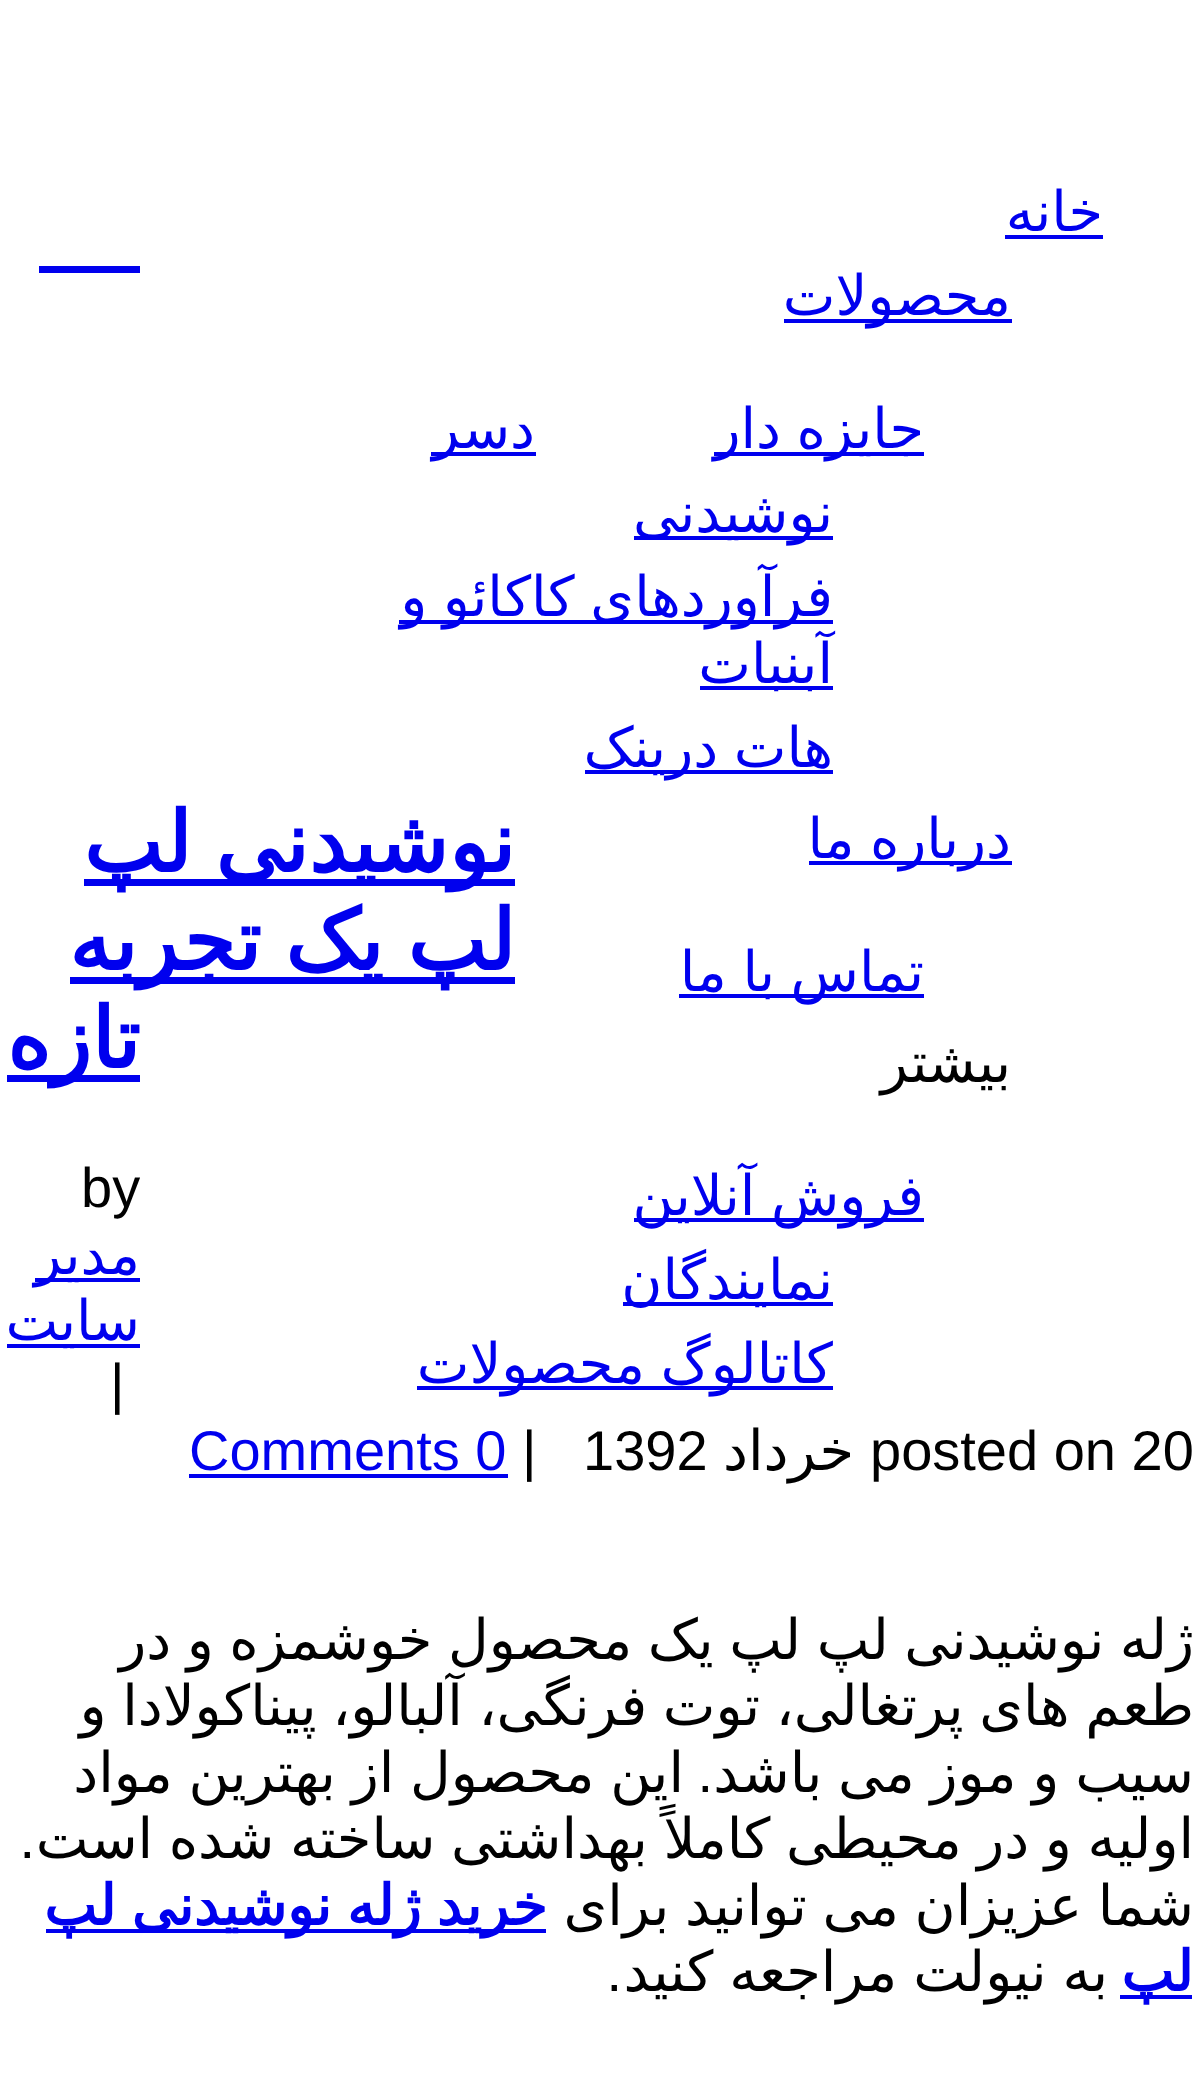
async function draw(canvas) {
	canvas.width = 1192;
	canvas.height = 2074;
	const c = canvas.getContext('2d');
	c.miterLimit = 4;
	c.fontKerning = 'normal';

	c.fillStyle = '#fff';
	c.fillRect(0, 0, 1192, 2074);
	c.direction = 'rtl';
	c.font = '56px DejaVu Sans';
	c.fillStyle = '#00e';
	c.fillText('خانه', 1103, 231);
	c.fillRect(1005, 235, 98, 4);
	c.fillRect(784, 319, 228, 4);
	c.fillText('محصولات', 1011, 315);
	c.fillRect(714, 452, 210, 4);
	c.wordSpacing = '-2.25px';
	c.fillText('جایزه دار', 924, 448);
	c.fillRect(431, 452, 105, 4);
	c.wordSpacing = '0px';
	c.fillText('دسر', 535, 448);
	c.fillRect(634, 536, 199, 4);
	c.fillText('نوشیدنی', 833, 532);
	c.fillRect(399, 620, 434, 4);
	c.wordSpacing = '-2.25px';
	c.fillText('فرآوردهای کاکائو و', 833, 616);
	c.fillRect(700, 686, 133, 4);
	c.wordSpacing = '0px';
	c.fillText('آبنبات', 833, 683);
	c.fillRect(585, 770, 248, 4);
	c.wordSpacing = '-2.25px';
	c.fillText('هات درینک', 833, 767);
	c.fillRect(809, 861, 203, 4);
	c.fillText('درباره ما', 1011, 858);
	c.fillRect(679, 994, 245, 4);
	c.fillText('تماس با ما', 924, 991);
	c.wordSpacing = '0px';
	c.fillStyle = '#000';
	c.fillText('بیشتر', 1011, 1082);
	c.fillStyle = '#00e';
	c.fillRect(634, 1218, 290, 4);
	c.wordSpacing = '-2.25px';
	c.fillText('فروش آنلاین', 924, 1215);
	c.fillRect(623, 1302, 210, 4);
	c.wordSpacing = '0px';
	c.fillText('نمایندگان', 833, 1299);
	c.fillRect(417, 1386, 416, 4);
	c.wordSpacing = '-2.25px';
	c.fillText('کاتالوگ محصولات', 833, 1383);
	c.fillRect(84, 879, 431, 7);
	c.wordSpacing = '-3px';
	c.font = 'bold 84px DejaVu Sans';
	c.fillText('نوشیدنی لپ', 515, 872);
	c.fillRect(39, 266, 101, 7);
	c.fillRect(70, 977, 445, 7);
	c.fillText('لپ یک تجربه', 515, 970);
	c.fillRect(7, 1075, 133, 7);
	c.wordSpacing = '0px';
	c.fillText('تازه', 140, 1068);
	c.direction = 'ltr';
	c.font = '56px Liberation Sans';
	c.fillStyle = '#000';
	c.fillText('by', 81, 1207);
	c.fillStyle = '#00e';
	c.fillRect(35, 1278, 105, 4);
	c.direction = 'rtl';
	c.font = '56px DejaVu Sans';
	c.fillText('مدیر', 140, 1274);
	c.fillRect(7, 1344, 133, 4);
	c.fillText('سایت', 140, 1340);
	c.direction = 'ltr';
	c.font = '56px Liberation Sans';
	c.fillStyle = '#000';
	c.fillText('|', 110, 1403);
	c.fillText('posted on 20', 870, 1470);
	c.direction = 'rtl';
	c.font = '56px DejaVu Sans';
	c.fillText('خرداد', 854, 1470);
	c.direction = 'ltr';
	c.font = '56px Liberation Sans';
	c.fillText('1392', 583, 1470);
	c.fillText('|', 522, 1470);
	c.fillStyle = '#00e';
	c.fillText('Comments 0', 189, 1470);
	c.fillRect(189, 1474, 319, 4);
	c.wordSpacing = '-2.25px';
	c.direction = 'rtl';
	c.font = '56px DejaVu Sans';
	c.fillStyle = '#000';
	c.fillText('ژله نوشیدنی لپ لپ یک محصول خوشمزه و در', 1194, 1659);
	c.fillText('طعم های پرتغالی، توت فرنگی، آلبالو، پیناکولادا و', 1194, 1725);
	c.wordSpacing = '-2px';
	c.fillText('سیب و موز می باشد', 1194, 1792);
	c.wordSpacing = '0px';
	c.font = '56px Liberation Sans';
	c.fillText('.', 713, 1792);
	c.wordSpacing = '-2px';
	c.font = '56px DejaVu Sans';
	c.fillText('این محصول از بهترین مواد', 684, 1792);
	c.wordSpacing = '-2.25px';
	c.fillText('اولیه و در محیطی کاملاً بهداشتی ساخته شده است', 1194, 1858);
	c.wordSpacing = '0px';
	c.font = '56px Liberation Sans';
	c.fillText('.', 35, 1858);
	c.wordSpacing = '-2.25px';
	c.font = '56px DejaVu Sans';
	c.fillText('شما عزیزان می توانید برای', 1194, 1925);
	c.fillStyle = '#00e';
	c.fillRect(46, 1929, 500, 4);
	c.font = 'bold 56px DejaVu Sans';
	c.fillText('خرید ژله نوشیدنی لپ', 547, 1925);
	c.fillRect(1120, 1995, 72, 4);
	c.wordSpacing = '0px';
	c.fillText('لپ', 1193, 1991);
	c.wordSpacing = '-2px';
	c.font = '56px DejaVu Sans';
	c.fillStyle = '#000';
	c.fillText('به نیولت مراجعه کنید', 1108, 1991);
	c.wordSpacing = '0px';
	c.font = '56px Liberation Sans';
	c.fillText('.', 622, 1991);
}

draw(document.querySelector('canvas'));
